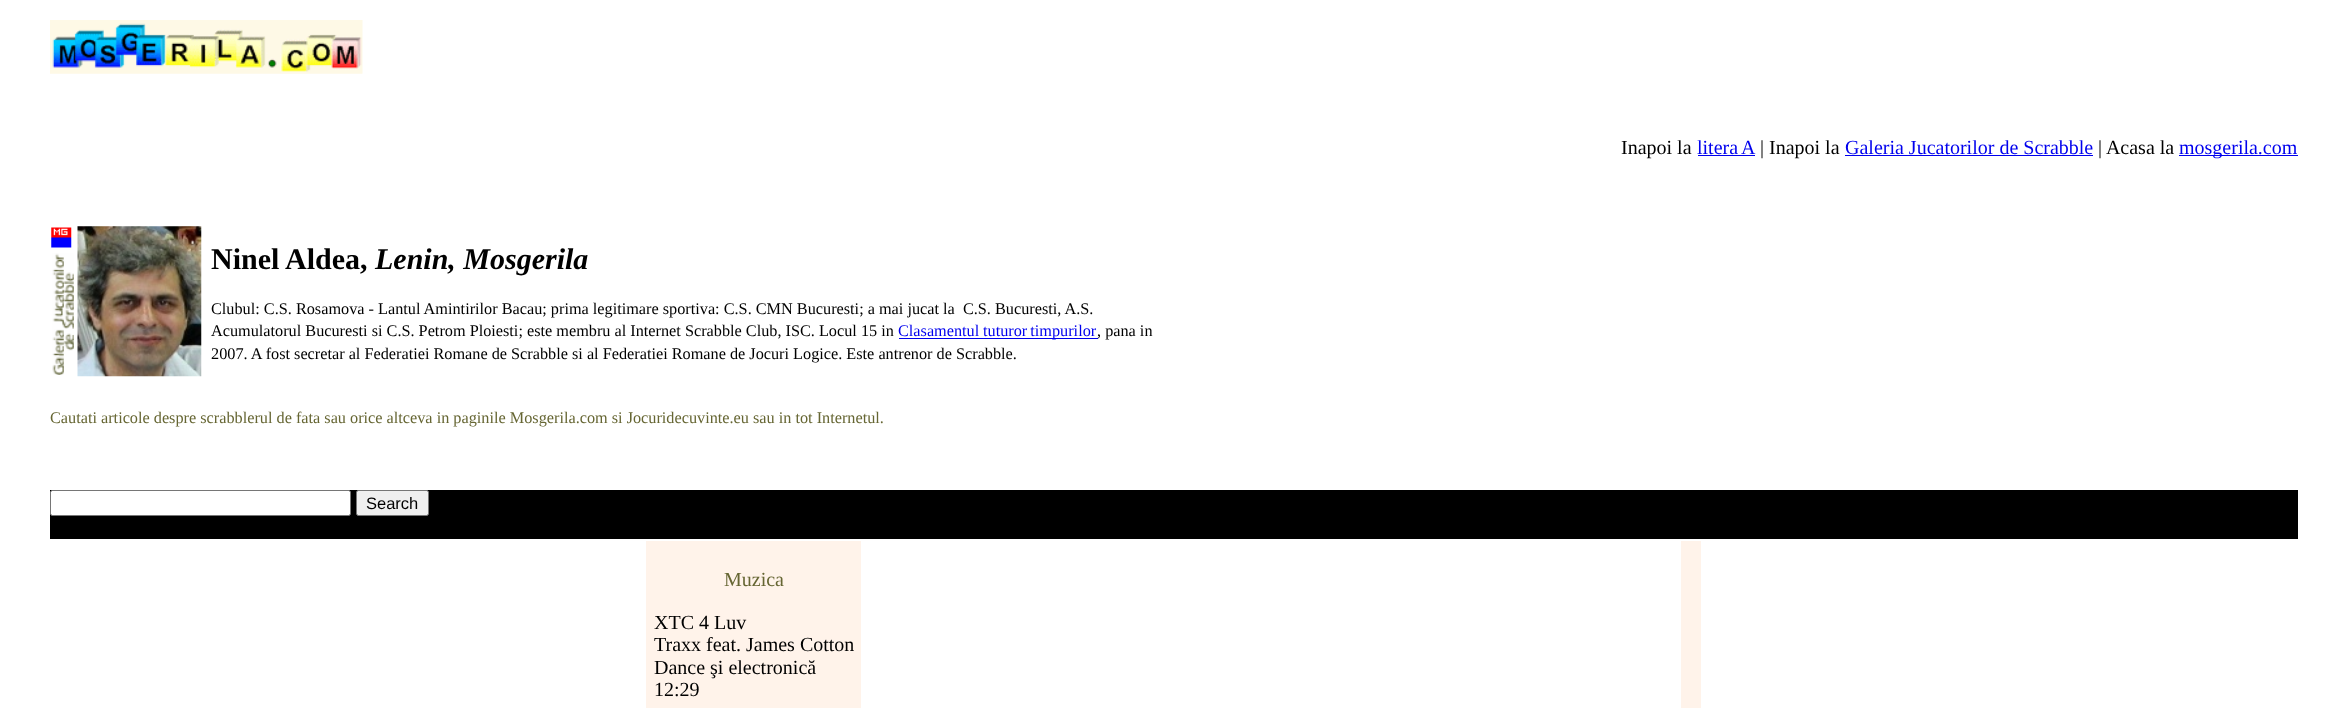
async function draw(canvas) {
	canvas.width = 2347;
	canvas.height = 708;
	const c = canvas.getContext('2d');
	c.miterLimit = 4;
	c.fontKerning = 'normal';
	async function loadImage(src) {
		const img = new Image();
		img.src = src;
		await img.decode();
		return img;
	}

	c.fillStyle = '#fff';
	c.fillRect(0, 0, 2347, 708);
	c.drawImage(await loadImage('img1.png'), 50, 20, 313, 54);
	c.font = '20px Liberation Serif';
	c.fillStyle = '#000';
	c.fillText('Inapoi la', 1621, 154);
	c.wordSpacing = '-1px';
	c.fillStyle = '#00e';
	c.fillText('litera A', 1697, 154);
	c.fillRect(1698, 155, 57, 1);
	c.wordSpacing = '0px';
	c.fillStyle = '#000';
	c.fillText('| Inapoi la', 1760, 154);
	c.fillStyle = '#00e';
	c.fillText('Galeria Jucatorilor de Scrabble', 1845, 154);
	c.fillRect(1845, 155, 248, 1);
	c.fillStyle = '#000';
	c.fillText('| Acasa la', 2098, 154);
	c.fillStyle = '#00e';
	c.fillRect(2179, 155, 119, 1);
	c.fillText('mosgerila.com', 2179, 154);
	c.drawImage(await loadImage('img2.png'), 51, 227, 21, 21);
	c.drawImage(await loadImage('img3.png'), 52, 253, 22, 122);
	c.drawImage(await loadImage('img4.png'), 77, 226, 125, 151);
	c.font = 'bold 30px Liberation Serif';
	c.fillStyle = '#000';
	c.fillText('Ninel', 211, 269);
	c.fillText('Aldea,', 285, 269);
	c.font = 'italic bold 30px Liberation Serif';
	c.fillText('Lenin, Mosgerila', 375, 269);
	c.font = '16.25px Liberation Serif';
	c.fillText('Clubul: C.S. Rosamova - Lantul Amintirilor Bacau; prima legitimare sportiva: C.S. CMN Bucuresti; a mai jucat la  C.S. Bucuresti, A.S.', 211, 314);
	c.fillText('Acumulatorul Bucuresti si C.S. Petrom Ploiesti; este membru al Internet Scrabble Club, ISC. Locul 15 in', 211, 336);
	c.fillStyle = '#00e';
	c.fillText('Clasamentul', 898, 336);
	c.fillRect(899, 338, 199, 1);
	c.wordSpacing = '-1px';
	c.fillText('tuturor timpurilor', 983, 336);
	c.wordSpacing = '0px';
	c.fillStyle = '#000';
	c.fillText(', pana in', 1097, 336);
	c.fillText('2007. A fost secretar al Federatiei Romane de Scrabble si al Federatiei Romane de Jocuri Logice. Este antrenor de Scrabble.', 211, 359);
	c.fillStyle = '#663';
	c.fillText('Cautati articole despre scrabblerul de fata sau orice altceva in paginile Mosgerila.com si Jocuridecuvinte.eu sau in tot Internetul.', 50, 423);
	c.fillStyle = '#000';
	c.fillRect(50, 490, 2248, 49);
	c.fillStyle = '#fff';
	c.beginPath();
	c.roundRect(50.5, 490.5, 300, 25, 2);
	c.fill();
	c.strokeStyle = '#767676';
	c.stroke();
	c.fillStyle = '#efefef';
	c.beginPath();
	c.roundRect(356.5, 490.5, 72, 25, 2);
	c.fill();
	c.stroke();
	c.font = '16.5px Liberation Sans';
	c.fillStyle = '#000';
	c.fillText('Search', 366, 509);
	c.fillStyle = '#fff3ea';
	c.fillRect(646, 541, 215, 167);
	c.font = '20px Liberation Serif';
	c.fillStyle = '#663';
	c.fillText('Muzica', 724, 586);
	c.fillStyle = '#000';
	for (const [text, x, y] of [
		['XTC 4 Luv', 654, 629],
		['Traxx feat. James Cotton', 654, 651],
		['Dance şi electronică', 654, 674],
		['12:29', 654, 696],
	]) {
		c.fillText(text, x, y);
	}
	c.fillStyle = '#fff3ea';
	c.fillRect(1681, 541, 20, 167);
}

draw(document.querySelector('canvas'));
